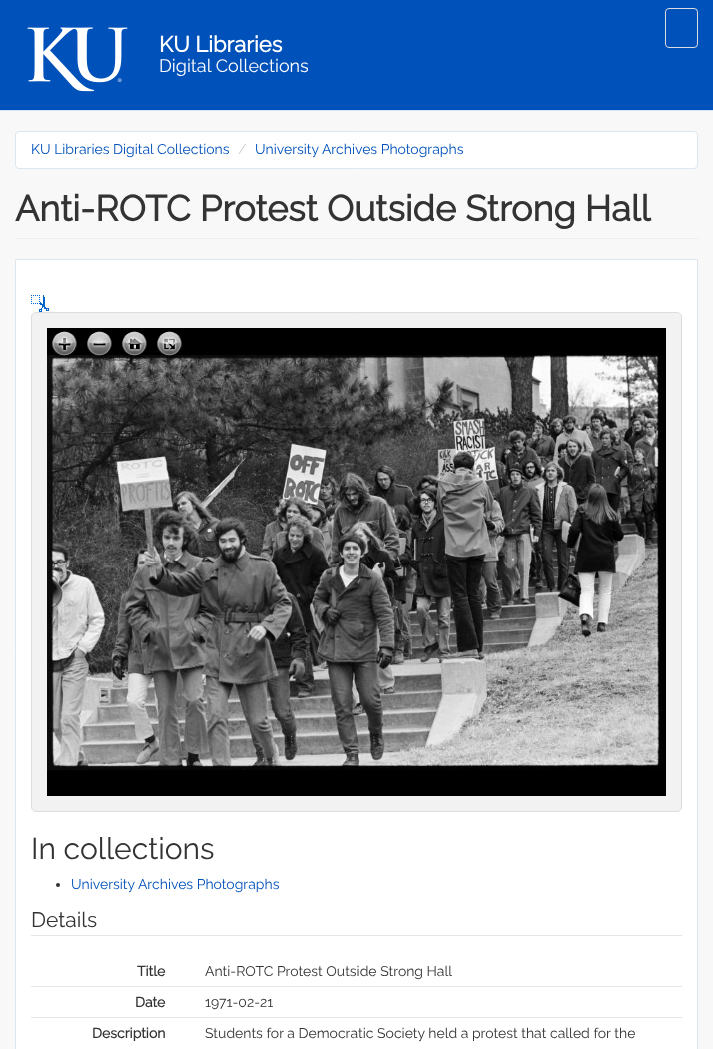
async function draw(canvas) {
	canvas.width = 713;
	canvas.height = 1049;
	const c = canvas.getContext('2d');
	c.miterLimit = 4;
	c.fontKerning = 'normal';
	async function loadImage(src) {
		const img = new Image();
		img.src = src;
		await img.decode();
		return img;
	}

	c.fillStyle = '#f8f8f8';
	c.fillRect(0, 0, 713, 1049);
	c.fillStyle = '#0051ba';
	c.fillRect(0, 0, 713, 110);
	c.fillStyle = '#d7e3f6';
	c.fillRect(0, 110, 713, 1);
	c.drawImage(await loadImage('img1.png'), 27, 27, 101, 65);
	c.font = 'bold 22px Raleway';
	c.fillStyle = '#fff';
	c.fillText('KU Libraries', 159, 52);
	c.font = '100 18px Raleway';
	c.fillText('Digital Collections', 159, 72);
	c.beginPath();
	c.roundRect(665.5, 8.5, 32, 39, 3.5);
	c.strokeStyle = '#ddd';
	c.stroke();
	c.beginPath();
	c.roundRect(15.5, 131.5, 682, 37, 3.5);
	c.fill();
	c.strokeStyle = '#dde5ed';
	c.stroke();
	c.font = '100 14px Raleway';
	c.fillStyle = '#0051ba';
	c.fillText('KU Libraries Digital Collections', 31, 154);
	c.fillStyle = '#ccc';
	c.fillText('/', 238, 154);
	c.fillStyle = '#0051ba';
	c.fillText('University Archives Photographs', 255, 154);
	c.fillStyle = '#eee';
	c.fillRect(15, 238, 683, 1);
	c.font = 'bold 36px Raleway';
	c.fillStyle = '#333';
	c.fillText('Anti-ROTC Protest Outside Strong Hall', 15, 221);
	c.fillStyle = '#fff';
	c.beginPath();
	c.rect(15.5, 259.5, 682, 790);
	c.fill();
	c.stroke();
	c.drawImage(await loadImage('img2.png'), 31, 295, 18, 17);
	c.fillStyle = '#f2f2f2';
	c.beginPath();
	c.roundRect(31.5, 312.5, 650, 499, 4.5);
	c.fill();
	c.strokeStyle = '#ddd';
	c.stroke();
	c.fillStyle = '#000';
	c.fillRect(47, 328, 619, 468);
	c.drawImage(await loadImage('img3.png'), 47, 355, 616, 415);
	c.drawImage(await loadImage('img4.png'), 52, 331, 25, 29);
	c.drawImage(await loadImage('img5.png'), 52, 331, 25, 29);
	c.drawImage(await loadImage('img6.png'), 87, 331, 25, 29);
	c.drawImage(await loadImage('img7.png'), 87, 331, 25, 25);
	c.drawImage(await loadImage('img8.png'), 122, 331, 25, 29);
	c.drawImage(await loadImage('img9.png'), 122, 331, 25, 29);
	c.drawImage(await loadImage('img10.png'), 157, 331, 25, 29);
	c.drawImage(await loadImage('img11.png'), 157, 331, 25, 25);
	c.font = '100 30px Raleway';
	c.fillStyle = '#333';
	c.fillText('In collections', 31, 859);
	c.beginPath();
	c.arc(58, 885, 2, 0, 2 * Math.PI);
	c.fill();
	c.font = '100 14px Raleway';
	c.fillStyle = '#0051ba';
	c.fillText('University Archives Photographs', 71, 889);
	c.fillStyle = '#e5e5e5';
	c.fillRect(31, 935, 651, 1);
	c.font = '100 21px Raleway';
	c.fillStyle = '#333';
	c.fillText('Details', 31, 927);
	c.font = 'bold 14px Raleway';
	c.fillText('Title', 137, 976);
	c.font = '100 14px Raleway';
	c.fillText('Anti-ROTC Protest Outside Strong Hall', 205, 976);
	c.fillStyle = '#e5e5e5';
	c.fillRect(31, 986, 651, 1);
	c.font = 'bold 14px Raleway';
	c.fillStyle = '#333';
	c.fillText('Date', 135, 1007);
	c.font = '100 14px Raleway';
	c.fillText('1971-02-21', 205, 1007);
	c.fillStyle = '#e5e5e5';
	c.fillRect(31, 1017, 651, 1);
	c.font = 'bold 14px Raleway';
	c.fillStyle = '#333';
	c.fillText('Description', 92, 1038);
	c.font = '100 14px Raleway';
	c.fillText('Students for a Democratic Society held a protest that called for the', 205, 1038);
}

draw(document.querySelector('canvas'));
